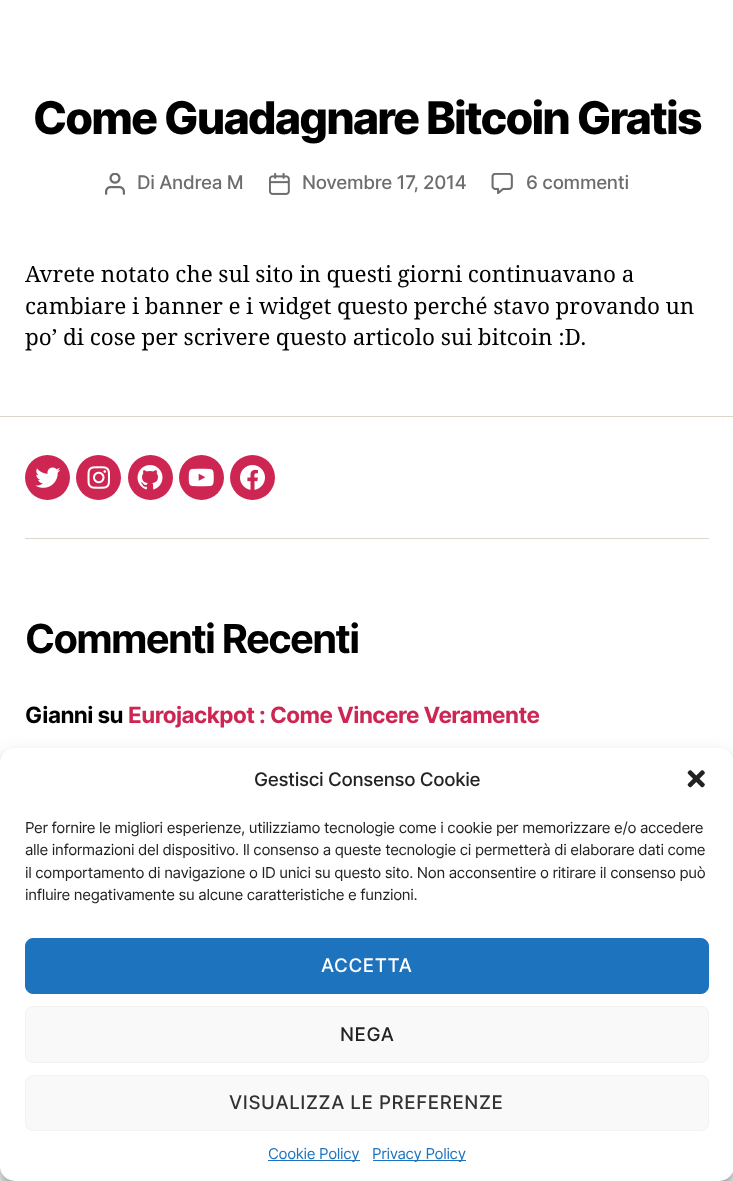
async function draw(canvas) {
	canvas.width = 733;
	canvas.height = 1181;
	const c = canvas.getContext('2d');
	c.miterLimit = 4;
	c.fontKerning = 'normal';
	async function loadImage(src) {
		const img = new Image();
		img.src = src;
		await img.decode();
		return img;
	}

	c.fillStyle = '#fff';
	c.fillRect(0, 0, 733, 1181);
	c.letterSpacing = '-1.9px';
	c.font = '800 45px Inter';
	c.fillStyle = '#000';
	c.fillText('Come Guadagnare Bitcoin Gratis', 33, 134);
	c.drawImage(await loadImage('img1.png'), 105, 173, 20, 22);
	c.letterSpacing = '-0.3px';
	c.font = '500 18.75px Inter';
	c.fillStyle = '#6d6d6d';
	c.fillText('Di Andrea M', 137, 189);
	c.drawImage(await loadImage('img2.png'), 269, 173, 21, 22);
	c.fillText('Novembre 17, 2014', 302, 189);
	c.drawImage(await loadImage('img3.png'), 491, 173, 22, 22);
	c.fillText('6 commenti', 526, 189);
	c.letterSpacing = '0px';
	c.wordSpacing = '-0.25px';
	c.font = '22.5px Noto Serif';
	c.fillStyle = '#000';
	for (const [text, x, y] of [
		['Avrete notato che sul sito in questi giorni continuavano a', 25, 282],
		['cambiare i banner e i widget questo perché stavo provando un', 25, 314],
		['po’ di cose per scrivere questo articolo sui bitcoin :D.', 25, 345],
	]) {
		c.fillText(text, x, y);
	}
	c.fillStyle = '#dcd7ca';
	c.fillRect(0, 416, 733, 1);
	c.fillRect(25, 538, 684, 1);
	c.fillStyle = '#cd2653';
	c.beginPath();
	c.arc(47.5, 477.5, 22.5, 0, 2 * Math.PI);
	c.fill();
	c.drawImage(await loadImage('img4.png'), 35, 467, 26, 21);
	c.beginPath();
	c.arc(98.5, 477.5, 22.5, 0, 2 * Math.PI);
	c.fill();
	c.drawImage(await loadImage('img5.png'), 87, 466, 23, 23);
	c.beginPath();
	c.arc(150.5, 477.5, 22.5, 0, 2 * Math.PI);
	c.fill();
	c.drawImage(await loadImage('img6.png'), 137, 465, 26, 25);
	c.beginPath();
	c.arc(201.5, 477.5, 22.5, 0, 2 * Math.PI);
	c.fill();
	c.drawImage(await loadImage('img7.png'), 188, 468, 26, 19);
	c.beginPath();
	c.arc(252.5, 477.5, 22.5, 0, 2 * Math.PI);
	c.fill();
	c.drawImage(await loadImage('img8.png'), 240, 465, 25, 25);
	c.letterSpacing = '-1.7px';
	c.wordSpacing = '0px';
	c.font = 'bold 40px Inter';
	c.fillStyle = '#000';
	c.fillText('Commenti Recenti', 25, 653);
	c.letterSpacing = '-0.55px';
	c.font = 'bold 22.5px Inter';
	c.fillText('Gianni su', 25, 723);
	c.fillStyle = '#cd2653';
	c.fillText('Eurojackpot : Come Vincere Veramente', 128, 723);
	c.fillStyle = '#0000003b';
	c.filter = 'blur(4px)';
	c.beginPath();
	c.roundRect(0, 755, 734, 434, 15);
	c.fill();
	c.filter = 'none';
	c.fillStyle = '#00000030';
	c.filter = 'blur(12.5px)';
	c.beginPath();
	c.roundRect(0, 760, 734, 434, 15);
	c.fill();
	c.filter = 'none';
	c.fillStyle = '#fff';
	c.beginPath();
	c.roundRect(0, 748, 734, 433, 15);
	c.fill();
	c.letterSpacing = '-0.34px';
	c.font = '500 18.75px Inter';
	c.fillStyle = '#222';
	c.fillText('Gestisci Consenso Cookie', 254, 786);
	c.drawImage(await loadImage('img9.png'), 687, 770, 18, 18);
	c.font = '15px Inter';
	for (const [text, x, y] of [
		['Per fornire le migliori esperienze, utilizziamo tecnologie come i cookie per memorizzare e/o accedere', 25, 833],
		['alle informazioni del dispositivo. Il consenso a queste tecnologie ci permetterà di elaborare dati come', 25, 855],
		['il comportamento di navigazione o ID unici su questo sito. Non acconsentire o ritirare il consenso può', 25, 878],
		['influire negativamente su alcune caratteristiche e funzioni.', 25, 900],
	]) {
		c.fillText(text, x, y);
	}
	c.fillStyle = '#1e73be';
	c.beginPath();
	c.roundRect(25.5, 938.5, 683, 55, 7.5);
	c.fill();
	c.strokeStyle = '#1e73be';
	c.stroke();
	c.letterSpacing = '0.6px';
	c.font = '500 18.75px Inter';
	c.fillStyle = '#fff';
	c.fillText('ACCETTA', 321, 972);
	c.fillStyle = '#f9f9f9';
	c.beginPath();
	c.roundRect(25.5, 1006.5, 683, 56, 7.5);
	c.fill();
	c.strokeStyle = '#f2f2f2';
	c.stroke();
	c.fillStyle = '#222';
	c.fillText('NEGA', 340, 1041);
	c.fillStyle = '#f9f9f9';
	c.beginPath();
	c.roundRect(25.5, 1075.5, 683, 55, 7.5);
	c.fill();
	c.stroke();
	c.fillStyle = '#333';
	c.fillText('VISUALIZZA LE PREFERENZE', 229, 1109);
	c.fillStyle = '#1e73be';
	c.fillRect(268, 1160, 92, 1);
	c.letterSpacing = '-0.34px';
	c.font = '15px Inter';
	c.fillText('Cookie Policy', 268, 1159);
	c.fillRect(373, 1160, 93, 1);
	c.fillText('Privacy Policy', 372, 1159);
}

draw(document.querySelector('canvas'));
